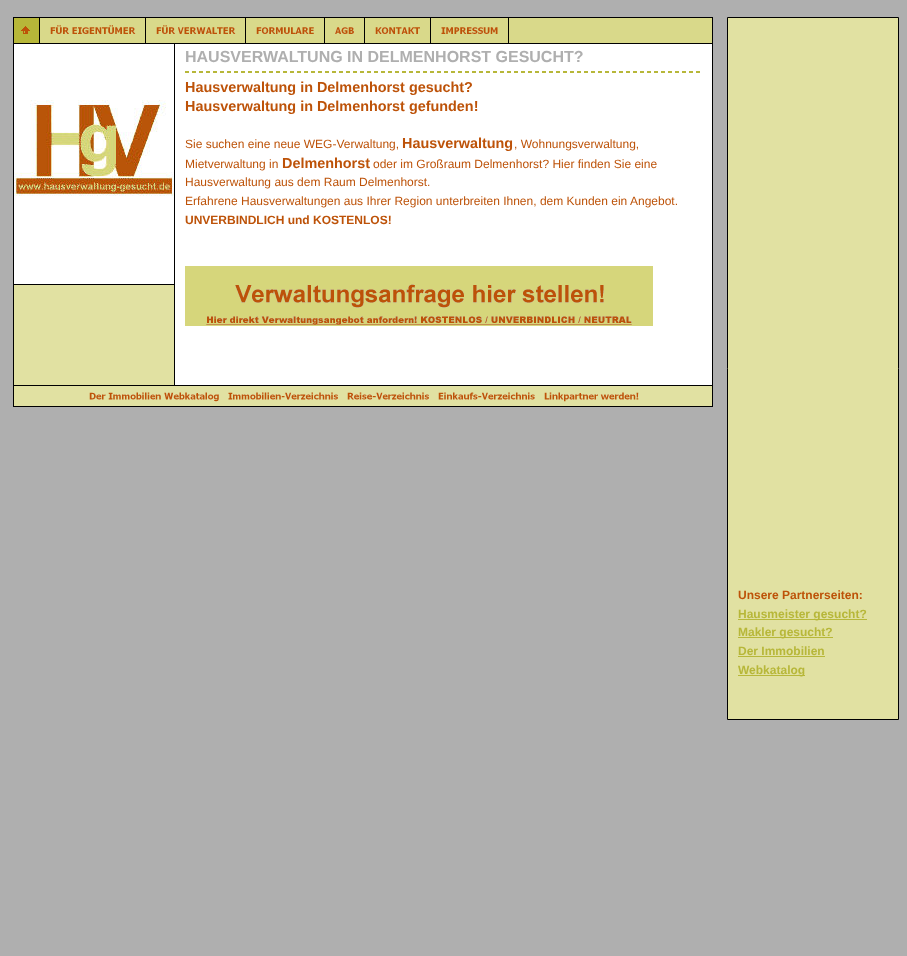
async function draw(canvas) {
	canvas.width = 907;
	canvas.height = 956;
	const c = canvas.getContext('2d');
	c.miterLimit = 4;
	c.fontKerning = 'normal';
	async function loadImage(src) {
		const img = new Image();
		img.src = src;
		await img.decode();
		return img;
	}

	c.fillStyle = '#afafaf';
	c.fillRect(0, 0, 907, 956);
	for (const [x, y, w, h, color] of [
		[14, 285, 698, 121, '#e1e1a2'],
		[13, 17, 700, 1, '#000'],
		[13, 18, 1, 25, '#000'],
		[40, 18, 672, 25, '#d9d98a'],
	]) {
		c.fillStyle = color;
		c.fillRect(x, y, w, h);
	}
	c.drawImage(await loadImage('img1.png'), 14, 18, 25, 25);
	c.fillStyle = '#000';
	c.fillRect(39, 18, 1, 25);
	c.drawImage(await loadImage('img2.png'), 50, 25, 86, 9);
	c.fillRect(145, 18, 1, 25);
	c.drawImage(await loadImage('img3.png'), 156, 25, 80, 9);
	c.fillRect(245, 18, 1, 25);
	c.drawImage(await loadImage('img4.png'), 256, 27, 58, 7);
	c.fillRect(324, 18, 1, 25);
	c.drawImage(await loadImage('img5.png'), 335, 27, 19, 7);
	c.fillRect(364, 18, 1, 25);
	c.drawImage(await loadImage('img6.png'), 375, 27, 45, 7);
	c.fillRect(430, 18, 1, 25);
	c.drawImage(await loadImage('img7.png'), 441, 27, 57, 7);
	for (const [x, y, w, h, color] of [
		[508, 18, 1, 25, '#000'],
		[712, 18, 1, 25, '#000'],
		[13, 43, 700, 1, '#000'],
		[13, 44, 1, 341, '#000'],
	]) {
		c.fillStyle = color;
		c.fillRect(x, y, w, h);
	}
	c.drawImage(await loadImage('img8.png'), 14, 44, 160, 240);
	for (const [x, y, w, h, color] of [
		[14, 284, 160, 1, '#000'],
		[174, 44, 1, 341, '#000'],
		[175, 44, 537, 341, '#fff'],
	]) {
		c.fillStyle = color;
		c.fillRect(x, y, w, h);
	}
	c.font = 'bold 16px Liberation Sans';
	c.fillStyle = '#afafaf';
	c.fillText('HAUSVERWALTUNG IN DELMENHORST GESUCHT?', 185, 62);
	c.drawImage(await loadImage('img9.png'), 185, 71, 515, 2);
	c.font = 'bold 14.4px Liberation Sans';
	c.fillStyle = '#bd5208';
	c.fillText('Hausverwaltung in Delmenhorst gesucht?', 185, 92);
	c.fillText('Hausverwaltung in Delmenhorst gefunden!', 185, 111);
	c.font = '12px Liberation Sans';
	c.fillText('Sie suchen eine neue WEG-Verwaltung,', 185, 148);
	c.font = 'bold 14.4px Liberation Sans';
	c.fillText('Hausverwaltung', 402, 148);
	c.font = '12px Liberation Sans';
	c.fillText(', Wohnungsverwaltung,', 514, 148);
	c.fillText('Mietverwaltung in', 185, 168);
	c.font = 'bold 14.4px Liberation Sans';
	c.fillText('Delmenhorst', 282, 168);
	c.font = '12px Liberation Sans';
	for (const [text, x, y] of [
		['oder im Großraum Delmenhorst? Hier finden Sie eine', 373, 168],
		['Hausverwaltung aus dem Raum Delmenhorst.', 185, 186],
		['Erfahrene Hausverwaltungen aus Ihrer Region unterbreiten Ihnen, dem Kunden ein Angebot.', 185, 205],
	]) {
		c.fillText(text, x, y);
	}
	c.font = 'bold 12px Liberation Sans';
	c.fillText('UNVERBINDLICH und KOSTENLOS!', 185, 224);
	c.drawImage(await loadImage('img10.png'), 185, 266, 468, 60);
	for (const [x, y, w, h, color] of [
		[712, 44, 1, 341, '#000'],
		[13, 385, 700, 1, '#000'],
		[13, 386, 1, 20, '#000'],
	]) {
		c.fillStyle = color;
		c.fillRect(x, y, w, h);
	}
	c.drawImage(await loadImage('img11.png'), 89, 392, 130, 10);
	c.drawImage(await loadImage('img12.png'), 228, 392, 110, 8);
	c.drawImage(await loadImage('img13.png'), 347, 392, 82, 8);
	c.drawImage(await loadImage('img14.png'), 438, 392, 97, 8);
	c.drawImage(await loadImage('img15.png'), 544, 392, 95, 10);
	c.fillRect(712, 386, 1, 20);
	c.fillRect(13, 406, 700, 1);
	c.fillStyle = '#e1e1a2';
	c.beginPath();
	c.rect(727.5, 17.5, 171, 702);
	c.fill();
	c.strokeStyle = '#000';
	c.stroke();
	c.fillStyle = '#bd5208';
	c.fillText('Unsere Partnerseiten:', 738, 599);
	c.fillStyle = '#b7b739';
	c.fillRect(738, 619, 129, 1);
	c.fillText('Hausmeister gesucht?', 738, 618);
	c.fillRect(738, 637, 95, 1);
	c.fillText('Makler gesucht?', 738, 636);
	c.fillText('Der Immobilien', 738, 655);
	c.fillRect(738, 656, 87, 1);
	c.fillRect(738, 675, 67, 1);
	c.fillText('Webkatalog', 738, 674);
}

draw(document.querySelector('canvas'));
